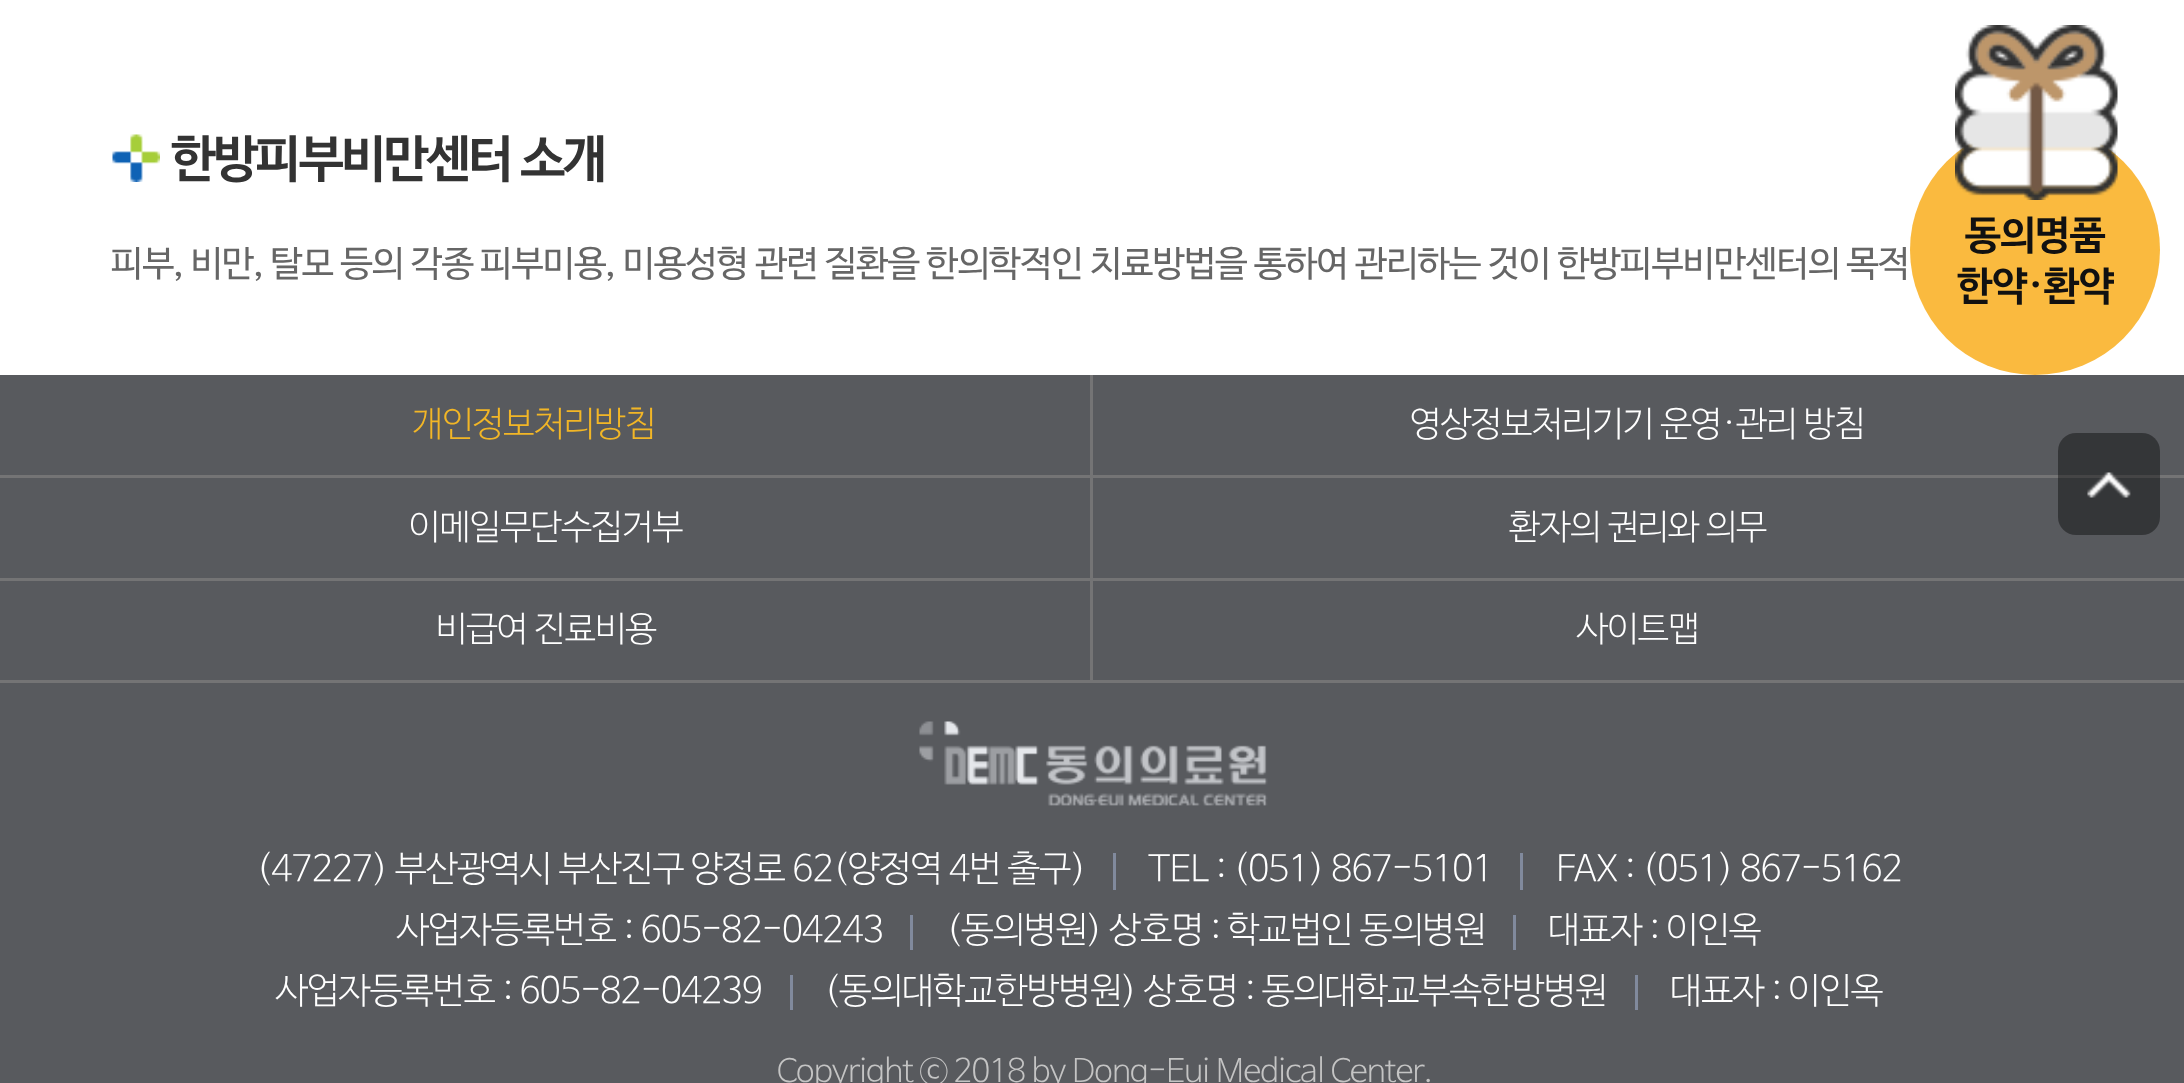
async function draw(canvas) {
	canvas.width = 2184;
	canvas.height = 1083;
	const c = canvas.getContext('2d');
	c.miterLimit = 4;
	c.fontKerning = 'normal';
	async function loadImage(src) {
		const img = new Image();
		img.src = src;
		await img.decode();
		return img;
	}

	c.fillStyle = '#fff';
	c.fillRect(0, 0, 2184, 1083);
	c.drawImage(await loadImage('img1.png'), 112, 134, 48, 48);
	c.letterSpacing = '-2.5px';
	c.font = 'bold 50.5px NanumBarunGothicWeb';
	c.fillStyle = '#333';
	c.fillText('한방피부비만센터 소개', 171, 175);
	c.letterSpacing = '-0.8px';
	c.font = '36px NanumBarunGothicWeb';
	c.fillStyle = '#666';
	c.fillText('피부, 비만, 탈모 등의 각종 피부미용, 미용성형 관련 질환을 한의학적인 치료방법을 통하여 관리하는 것이 한방피부비만센터의 목적', 111, 275);
	c.fillStyle = '#faba3f';
	c.beginPath();
	c.arc(2035, 250, 125, 0, 2 * Math.PI);
	c.fill();
	c.drawImage(await loadImage('img2.png'), 1955, 25, 163, 175);
	c.font = 'bold 40px NanumBarunGothicWeb';
	c.fillStyle = '#111';
	c.fillText('동의명품', 1965, 248);
	c.fillText('한약·환약', 1957, 299);
	for (const [x, y, w, h, color] of [
		[0, 375, 2184, 708, '#585a5e'],
		[1090, 375, 3, 205, '#747475'],
		[0, 475, 2184, 3, '#747475'],
	]) {
		c.fillStyle = color;
		c.fillRect(x, y, w, h);
	}
	c.font = '300 35px NanumBarunGothicWeb';
	c.fillStyle = '#f2b626';
	c.fillText('개인정보처리방침', 412, 435);
	c.fillStyle = '#fff';
	c.fillText('영상정보처리기기 운영·관리 방침', 1410, 435);
	c.fillStyle = '#747475';
	c.fillRect(0, 578, 2184, 3);
	c.fillStyle = '#fff';
	c.fillText('이메일무단수집거부', 409, 538);
	c.fillText('환자의 권리와 의무', 1509, 538);
	c.fillStyle = '#747475';
	c.fillRect(1090, 580, 3, 103);
	c.fillRect(0, 680, 2184, 3);
	c.fillStyle = '#fff';
	c.fillText('비급여 진료비용', 436, 640);
	c.fillText('사이트맵', 1577, 640);
	c.fillStyle = '#00000066';
	c.beginPath();
	c.roundRect(2058, 433, 102, 102, 18);
	c.fill();
	c.drawImage(await loadImage('img3.png'), 2087, 472, 44, 26);
	c.drawImage(await loadImage('img4.png'), 919, 721, 349, 85);
	c.fillStyle = '#818a9d';
	c.fillRect(1113, 853, 3, 37);
	c.font = '300 36px NanumBarunGothicWeb';
	c.fillStyle = '#fff';
	c.fillText('(47227) 부산광역시 부산진구 양정로 62(양정역 4번 출구)', 256, 880);
	c.fillStyle = '#818a9d';
	c.fillRect(1520, 853, 3, 37);
	c.fillStyle = '#fff';
	c.fillText('TEL : (051) 867-5101', 1148, 880);
	c.fillText('FAX : (051) 867-5162', 1556, 880);
	c.fillStyle = '#818a9d';
	c.fillRect(910, 915, 3, 35);
	c.fillStyle = '#fff';
	c.fillText('사업자등록번호 : 605-82-04243', 397, 941);
	c.fillStyle = '#818a9d';
	c.fillRect(1513, 915, 3, 35);
	c.fillStyle = '#fff';
	c.fillText('(동의병원) 상호명 : 학교법인 동의병원', 946, 941);
	c.fillText('대표자 : 이인옥', 1548, 941);
	c.fillStyle = '#818a9d';
	c.fillRect(790, 975, 3, 35);
	c.fillStyle = '#fff';
	c.fillText('사업자등록번호 : 605-82-04239', 276, 1002);
	c.fillStyle = '#818a9d';
	c.fillRect(1635, 975, 3, 35);
	c.fillStyle = '#fff';
	c.fillText('(동의대학교한방병원) 상호명 : 동의대학교부속한방병원', 824, 1002);
	c.fillText('대표자 : 이인옥', 1670, 1002);
	c.font = '300 32px NanumBarunGothicWeb';
	c.fillStyle = '#c4c4c4';
	c.fillText('Copyright ⓒ 2018 by Dong-Eui Medical Center.', 777, 1081);
}

draw(document.querySelector('canvas'));
